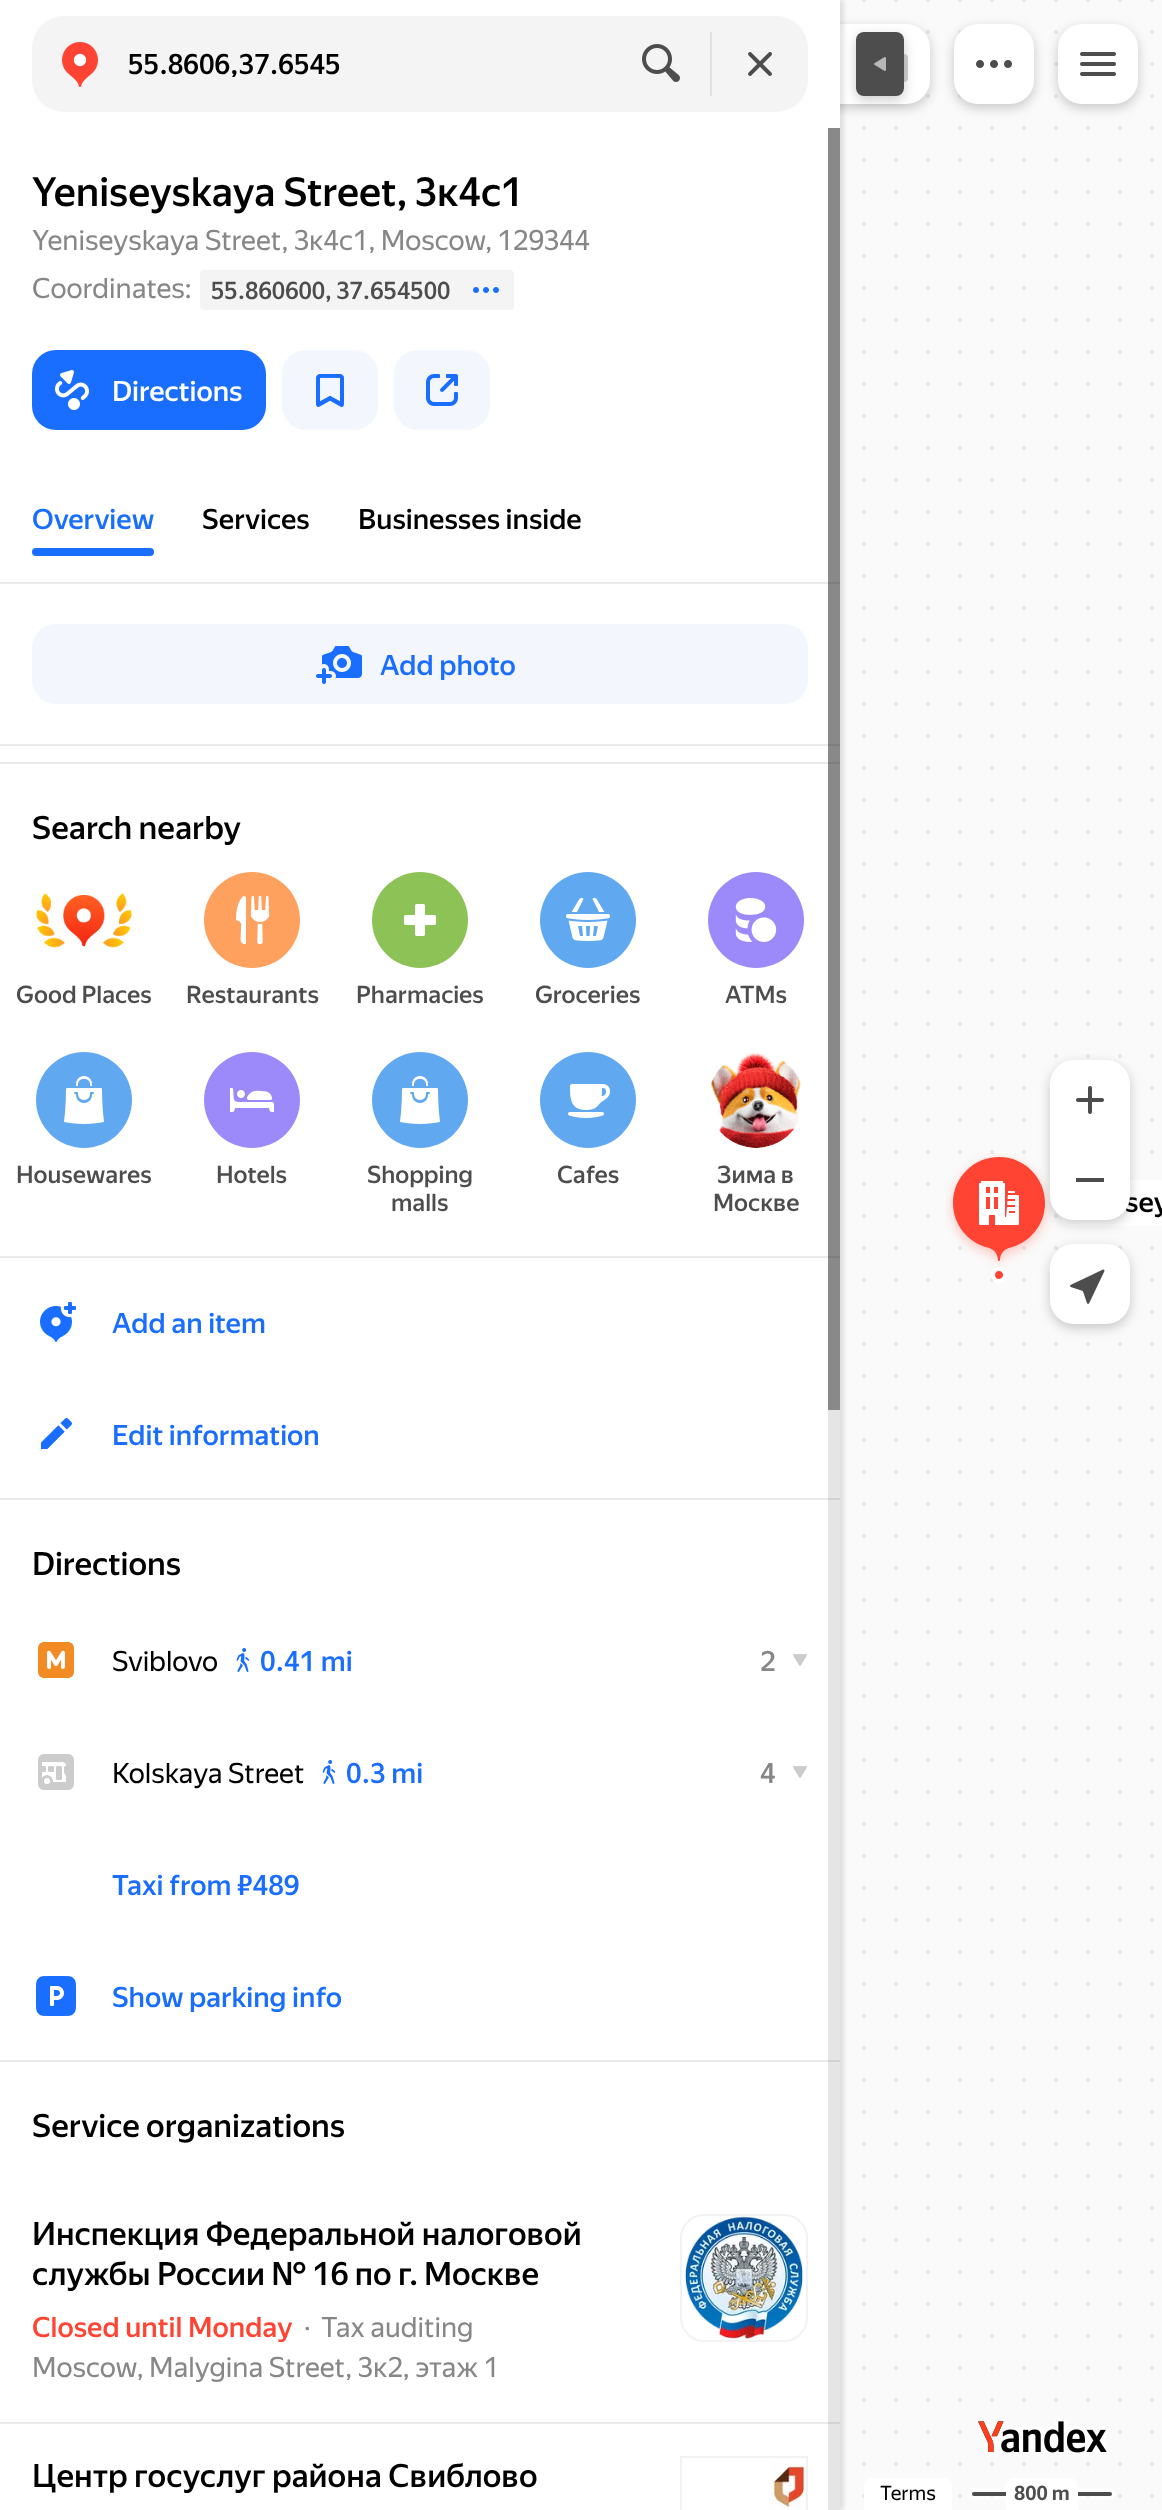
async function draw(canvas) {
	canvas.width = 1162;
	canvas.height = 2510;
	const c = canvas.getContext('2d');
	c.miterLimit = 4;
	c.fontKerning = 'normal';
	async function loadImage(src) {
		const img = new Image();
		img.src = src;
		await img.decode();
		return img;
	}

	c.fillStyle = '#fff';
	c.fillRect(0, 0, 1162, 2510);
	c.drawImage(await loadImage('img1.png'), 840, 0, 322, 2510);
	c.fillStyle = '#00000033';
	c.filter = 'blur(6px)';
	c.beginPath();
	c.roundRect(770, 28, 160, 80, 24);
	c.fill();
	c.filter = 'none';
	c.fillStyle = '#fff';
	c.fillRect(840, 24, 10, 80);
	c.beginPath();
	c.roundRect(850, 24, 80, 80, [0, 24, 24, 0]);
	c.fill();
	c.fillStyle = '#0000001a';
	c.filter = 'blur(2px)';
	c.beginPath();
	c.rect(4, 0, 840, 2510);
	c.fill();
	c.filter = 'none';
	c.drawImage(await loadImage('img5.png'), 904, 54, 4, 28);
	c.fillStyle = '#00000033';
	c.filter = 'blur(6px)';
	c.beginPath();
	c.roundRect(856, 36, 48, 64, 8);
	c.fill();
	c.filter = 'none';
	c.fillStyle = '#fff';
	c.fillRect(1, 0, 839, 2510);
	c.fillStyle = '#f4f4f4';
	c.beginPath();
	c.roundRect(32, 16, 776, 96, 32);
	c.fill();
	c.drawImage(await loadImage('img2.png'), 62, 42, 36, 45);
	c.font = '500 28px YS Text';
	c.fillStyle = '#000';
	c.fillText('55.8606,37.6545', 128, 74);
	c.drawImage(await loadImage('img3.png'), 642, 44, 38, 38);
	c.fillStyle = '#e0e0e0';
	c.fillRect(710, 32, 2, 64);
	c.drawImage(await loadImage('img4.png'), 748, 52, 24, 24);
	c.fillStyle = '#00000033';
	c.filter = 'blur(6px)';
	c.beginPath();
	c.roundRect(954, 28, 80, 80, 24);
	c.fill();
	c.filter = 'none';
	c.fillStyle = '#fff';
	c.beginPath();
	c.roundRect(954, 24, 80, 80, 24);
	c.fill();
	c.drawImage(await loadImage('img6.png'), 976, 60, 36, 8);
	c.fillStyle = '#00000033';
	c.filter = 'blur(6px)';
	c.beginPath();
	c.roundRect(1058, 28, 80, 80, 24);
	c.fill();
	c.filter = 'none';
	c.fillStyle = '#fff';
	c.beginPath();
	c.roundRect(1058, 24, 80, 80, 24);
	c.fill();
	c.drawImage(await loadImage('img7.png'), 1080, 52, 36, 24);
	c.drawImage(await loadImage('img35.png'), 945, 1153, 107, 130);
	c.fillStyle = '#ffffffe6';
	c.beginPath();
	c.roundRect(1060, 1180, 102, 46, [12, 0, 0, 12]);
	c.fill();
	c.fillStyle = '#00000033';
	c.filter = 'blur(6px)';
	c.beginPath();
	c.roundRect(1050, 1064, 80, 160, 24);
	c.fill();
	c.filter = 'none';
	c.fillStyle = '#fff';
	c.beginPath();
	c.roundRect(1050, 1060, 80, 80, [24, 24, 0, 0]);
	c.fill();
	c.drawImage(await loadImage('img8.png'), 1076, 1086, 28, 28);
	c.fillStyle = '#000';
	c.fillText('sey', 1125, 1212);
	c.fillStyle = '#fff';
	c.beginPath();
	c.roundRect(1050, 1140, 80, 80, [0, 0, 24, 24]);
	c.fill();
	c.fillStyle = '#4d4d4d';
	c.fillRect(1076, 1178, 28, 4);
	c.fillStyle = '#00000033';
	c.filter = 'blur(6px)';
	c.beginPath();
	c.roundRect(1050, 1248, 80, 80, 24);
	c.fill();
	c.filter = 'none';
	c.fillStyle = '#fff';
	c.beginPath();
	c.roundRect(1050, 1244, 80, 80, 24);
	c.fill();
	c.drawImage(await loadImage('img9.png'), 1070, 1269, 35, 35);
	c.fillStyle = '#4d4d4d';
	c.beginPath();
	c.roundRect(856, 32, 48, 64, 8);
	c.fill();
	c.drawImage(await loadImage('img10.png'), 874, 57, 12, 14);
	c.font = '500 40px YS Text';
	c.fillStyle = '#000';
	c.fillText('Yeniseyskaya Street, 3к4с1', 32, 206);
	c.font = '28px YS Text';
	c.fillStyle = '#878787';
	c.fillText('Yeniseyskaya Street, 3к4с1, Moscow, 129344', 32, 250);
	c.fillText('Coordinates:', 32, 298);
	c.fillStyle = '#f4f4f4';
	c.beginPath();
	c.roundRect(200, 270, 314, 40, 4);
	c.fill();
	c.font = '500 24px YS Text';
	c.fillStyle = '#4d4d4d';
	c.fillText('55.860600, 37.654500', 211, 299);
	c.drawImage(await loadImage('img11.png'), 473, 287, 26, 6);
	c.fillStyle = '#196dff';
	c.beginPath();
	c.roundRect(32, 350, 234, 80, 24);
	c.fill();
	c.drawImage(await loadImage('img12.png'), 55, 370, 34, 40);
	c.font = '500 28px YS Text';
	c.fillStyle = '#fff';
	c.fillText('Directions', 112, 401);
	c.fillStyle = '#f3f6fc';
	c.beginPath();
	c.roundRect(282, 350, 96, 80, 24);
	c.fill();
	c.drawImage(await loadImage('img13.png'), 316, 374, 28, 33);
	c.beginPath();
	c.roundRect(394, 350, 96, 80, 24);
	c.fill();
	c.drawImage(await loadImage('img14.png'), 426, 374, 32, 32);
	c.fillStyle = '#196dff';
	c.fillText('Overview', 32, 529);
	c.fillStyle = '#000';
	c.fillText('Services', 202, 529);
	c.fillText('Businesses inside', 358, 529);
	c.fillStyle = '#196dff';
	c.beginPath();
	c.roundRect(32, 548, 122, 8, 4);
	c.fill();
	c.fillStyle = '#ebebeb';
	c.fillRect(0, 582, 840, 2);
	c.fillRect(0, 744, 840, 2);
	c.fillStyle = '#f3f6fc';
	c.beginPath();
	c.roundRect(32, 624, 776, 80, 24);
	c.fill();
	c.drawImage(await loadImage('img15.png'), 316, 646, 46, 38);
	c.fillStyle = '#196dff';
	c.fillText('Add photo', 380, 675);
	c.fillStyle = '#ebebeb';
	c.fillRect(0, 762, 840, 2);
	c.fillRect(0, 1256, 840, 2);
	c.font = '500 32px YS Text';
	c.fillStyle = '#000';
	c.fillText('Search nearby', 32, 839);
	c.drawImage(await loadImage('img16.png'), 36, 893, 96, 55);
	c.font = '500 24px YS Text';
	c.fillStyle = '#4d4d4d';
	c.fillText('Good Places', 16, 1003);
	c.fillStyle = '#ffa15e';
	c.beginPath();
	c.arc(252, 920, 48, 0, 2 * Math.PI);
	c.fill();
	c.drawImage(await loadImage('img17.png'), 236, 896, 34, 48);
	c.fillStyle = '#4d4d4d';
	c.fillText('Restaurants', 186, 1003);
	c.fillStyle = '#8dc257';
	c.beginPath();
	c.arc(420, 920, 48, 0, 2 * Math.PI);
	c.fill();
	c.drawImage(await loadImage('img18.png'), 404, 904, 32, 32);
	c.fillStyle = '#4d4d4d';
	c.fillText('Pharmacies', 356, 1003);
	c.fillStyle = '#60a8f0';
	c.beginPath();
	c.arc(588, 920, 48, 0, 2 * Math.PI);
	c.fill();
	c.drawImage(await loadImage('img19.png'), 566, 898, 44, 43);
	c.fillStyle = '#4d4d4d';
	c.fillText('Groceries', 535, 1003);
	c.fillStyle = '#9c89fa';
	c.beginPath();
	c.arc(756, 920, 48, 0, 2 * Math.PI);
	c.fill();
	c.drawImage(await loadImage('img20.png'), 735, 898, 42, 44);
	c.fillStyle = '#4d4d4d';
	c.fillText('ATMs', 725, 1003);
	c.fillStyle = '#60a8f0';
	c.beginPath();
	c.arc(84, 1100, 48, 0, 2 * Math.PI);
	c.fill();
	c.drawImage(await loadImage('img21.png'), 64, 1076, 40, 48);
	c.fillStyle = '#4d4d4d';
	c.fillText('Housewares', 16, 1183);
	c.fillStyle = '#9c89fa';
	c.beginPath();
	c.arc(252, 1100, 48, 0, 2 * Math.PI);
	c.fill();
	c.drawImage(await loadImage('img22.png'), 230, 1088, 44, 24);
	c.fillStyle = '#4d4d4d';
	c.fillText('Hotels', 216, 1183);
	c.fillStyle = '#60a8f0';
	c.beginPath();
	c.arc(420, 1100, 48, 0, 2 * Math.PI);
	c.fill();
	c.drawImage(await loadImage('img21.png'), 400, 1076, 40, 48);
	c.fillStyle = '#4d4d4d';
	c.fillText('Shopping', 367, 1183);
	c.fillText('malls', 391, 1211);
	c.fillStyle = '#60a8f0';
	c.beginPath();
	c.arc(588, 1100, 48, 0, 2 * Math.PI);
	c.fill();
	c.drawImage(await loadImage('img23.png'), 568, 1084, 42, 34);
	c.fillStyle = '#4d4d4d';
	c.fillText('Cafes', 557, 1183);
	c.drawImage(await loadImage('img24.png'), 710, 1052, 91, 96);
	c.fillText('Зима в', 717, 1183);
	c.fillText('Москве', 713, 1211);
	c.fillStyle = '#ebebeb';
	c.fillRect(0, 1498, 840, 2);
	c.drawImage(await loadImage('img25.png'), 40, 1302, 36, 40);
	c.font = '500 28px YS Text';
	c.fillStyle = '#196dff';
	c.fillText('Add an item', 112, 1333);
	c.drawImage(await loadImage('img26.png'), 41, 1418, 31, 31);
	c.fillText('Edit information', 112, 1445);
	c.fillStyle = '#ebebeb';
	c.fillRect(0, 2060, 840, 2);
	c.font = '500 32px YS Text';
	c.fillStyle = '#000';
	c.fillText('Directions', 32, 1575);
	c.drawImage(await loadImage('img27.png'), 38, 1642, 36, 36);
	c.font = '28px YS Text';
	c.fillText('Sviblovo', 112, 1671);
	c.drawImage(await loadImage('img28.png'), 236, 1648, 14, 24);
	c.font = '500 28px YS Text';
	c.fillStyle = '#196dff';
	c.fillText('0.41 mi', 260, 1671);
	c.fillStyle = '#878787';
	c.fillText('2', 760, 1671);
	c.drawImage(await loadImage('img29.png'), 793, 1654, 14, 12);
	c.drawImage(await loadImage('img30.png'), 38, 1754, 36, 36);
	c.font = '28px YS Text';
	c.fillStyle = '#000';
	c.fillText('Kolskaya Street', 112, 1783);
	c.drawImage(await loadImage('img28.png'), 322, 1760, 14, 24);
	c.font = '500 28px YS Text';
	c.fillStyle = '#196dff';
	c.fillText('0.3 mi', 346, 1783);
	c.fillStyle = '#878787';
	c.fillText('4', 760, 1783);
	c.drawImage(await loadImage('img29.png'), 793, 1766, 14, 12);
	c.fillStyle = '#196dff';
	c.fillText('Taxi from ₽489', 112, 1895);
	c.drawImage(await loadImage('img31.png'), 36, 1976, 40, 40);
	c.fillText('Show parking info', 112, 2007);
	c.font = '500 32px YS Text';
	c.fillStyle = '#000';
	c.fillText('Service organizations', 32, 2137);
	c.fillStyle = '#ebebeb';
	c.fillRect(0, 2422, 840, 2);
	c.fillStyle = '#000';
	c.fillText('Инспекция Федеральной налоговой', 32, 2245);
	c.fillText('службы России № 16 по г. Москве', 32, 2285);
	c.drawImage(await loadImage('img32.png'), 685, 2216, 118, 123);
	c.beginPath();
	c.roundRect(681, 2215, 126, 126, 23);
	c.strokeStyle = '#f2f2f2';
	c.lineWidth = 2;
	c.stroke();
	c.save();
	c.beginPath();
	c.rect(32, 2310, 260, 32);
	c.clip();
	c.font = '500 28px YS Text';
	c.fillStyle = '#f43';
	c.fillText('Closed until Monday', 32, 2337);
	c.restore();
	c.font = '28px YS Text';
	c.fillStyle = '#878787';
	c.fillText('·', 304, 2337);
	c.fillText('Tax auditing', 321, 2337);
	c.save();
	c.beginPath();
	c.rect(32, 2350, 468, 32);
	c.clip();
	c.fillText('Moscow, Malygina Street, 3к2, этаж 1', 32, 2377);
	c.restore();
	c.font = '500 32px YS Text';
	c.fillStyle = '#000';
	c.fillText('Центр госуслуг района Свиблово', 32, 2487);
	c.drawImage(await loadImage('img33.png'), 769, 2463, 38, 47);
	c.strokeStyle = '#0000000d';
	c.strokeRect(681, 2457, 126, 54);
	c.fillStyle = '#0000001a';
	c.fillRect(828, 128, 12, 2382);
	c.fillStyle = '#00000066';
	c.fillRect(828, 128, 12, 1282);
	c.drawImage(await loadImage('img34.png'), 978, 2421, 129, 32);
	c.fillStyle = '#fff';
	c.beginPath();
	c.roundRect(864, 2478, 88, 32, [8, 8, 0, 0]);
	c.fill();
	c.font = '20px YS Text';
	c.fillStyle = '#000';
	c.fillText('Terms', 880, 2500);
	c.fillStyle = '#ffffff99';
	c.beginPath();
	c.roundRect(968, 2488, 148, 12, 6);
	c.fill();
	c.fillStyle = '#4d4d4d';
	c.beginPath();
	c.roundRect(972, 2492, 140, 4, 2);
	c.fill();
	c.fillStyle = '#fff';
	c.beginPath();
	c.roundRect(1006, 2478, 72, 32, [8, 8, 0, 0]);
	c.fill();
	c.font = 'bold 20px YS Text';
	c.fillStyle = '#4d4d4d';
	c.fillText('800 m', 1014, 2500);
	c.drawImage(await loadImage('img36.png'), 979, 1181, 40, 44);
}

draw(document.querySelector('canvas'));
